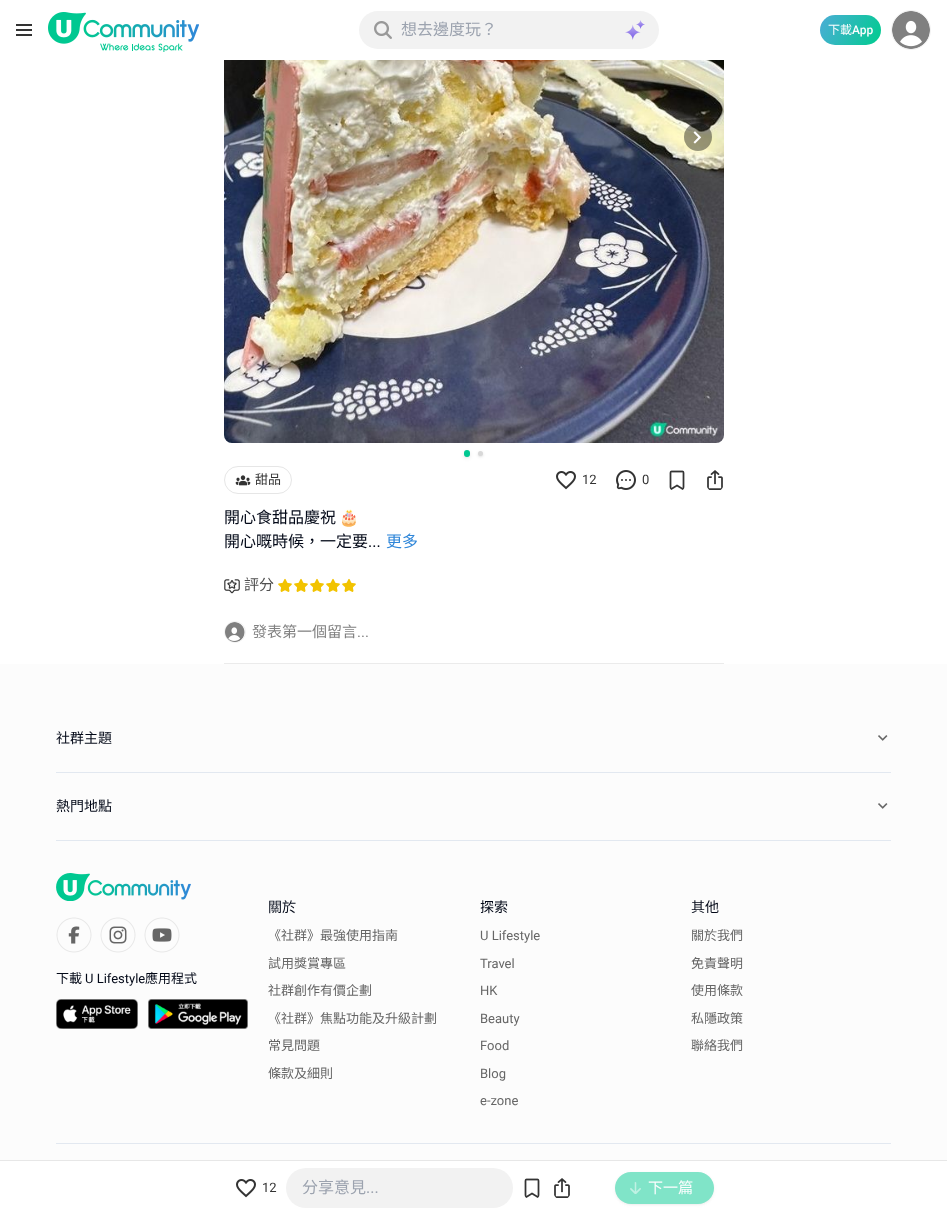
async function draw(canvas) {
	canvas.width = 947;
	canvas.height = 1215;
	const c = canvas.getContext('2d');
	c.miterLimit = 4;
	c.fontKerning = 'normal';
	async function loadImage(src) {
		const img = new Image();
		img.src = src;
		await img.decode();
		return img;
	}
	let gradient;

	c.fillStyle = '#fff';
	c.fillRect(0, 0, 947, 1215);
	c.fillStyle = '#e8e8ea';
	c.beginPath();
	c.roundRect(224, -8, 500, 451, 8);
	c.fill();
	c.fillStyle = '#fff';
	c.fillRect(224, 0, 500, 60);
	c.drawImage(await loadImage('img1.png'), 16, 24, 16, 12);
	c.drawImage(await loadImage('img2.png'), 48, 12, 151, 40);
	c.fillStyle = '#f2f2f2';
	c.beginPath();
	c.roundRect(359, 11, 300, 38, 19);
	c.fill();
	c.drawImage(await loadImage('img3.png'), 374, 21, 18, 18);
	c.font = '16px Noto Sans CJK HK';
	c.fillStyle = '#9ca3af';
	c.fillText('想去邊度玩？', 401, 35);
	c.drawImage(await loadImage('img4.png'), 625, 20, 20, 20);
	gradient = c.createLinearGradient(820, 16, 881, 44);
	gradient.addColorStop(0, '#4badd6');
	gradient.addColorStop(1, '#00cc8f');
	c.fillStyle = gradient;
	c.beginPath();
	c.roundRect(820, 15, 61, 30, 15);
	c.fill();
	c.font = '12px Noto Sans CJK HK';
	c.fillStyle = '#fcfdfe';
	c.fillText('下載', 828, 34);
	c.font = '500 12px Roboto';
	c.fillText('App', 852, 34);
	c.beginPath();
	c.arc(911, 30, 19.5, 0, 2 * Math.PI);
	c.strokeStyle = '#f2f2f2';
	c.stroke();
	c.drawImage(await loadImage('img5.png'), 892, 11, 38, 38);
	c.fillStyle = '#ebebeb';
	c.fillRect(224, 663, 500, 1);
	c.drawImage(await loadImage('img6.png'), 224, 60, 500, 383);
	c.fillStyle = '#00000066';
	c.beginPath();
	c.arc(698, 137, 14, 0, 2 * Math.PI);
	c.fill();
	c.drawImage(await loadImage('img7.png'), 693, 131, 9, 13);
	c.fillStyle = '#0000001a';
	c.filter = 'blur(1px)';
	c.beginPath();
	c.roundRect(465, 453, 4, 4, 2);
	c.fill();
	c.filter = 'none';
	c.filter = 'blur(2px)';
	c.beginPath();
	c.roundRect(464, 452, 6, 6, 3);
	c.fill();
	c.filter = 'none';
	c.fillStyle = '#00c891';
	c.beginPath();
	c.roundRect(464, 450, 6, 7, 3);
	c.fill();
	c.fillStyle = '#0000001a';
	c.filter = 'blur(1px)';
	c.beginPath();
	c.roundRect(479, 453, 3, 3, 1.5);
	c.fill();
	c.filter = 'none';
	c.filter = 'blur(1.5px)';
	c.beginPath();
	c.roundRect(478, 452, 5, 5, 2.5);
	c.fill();
	c.filter = 'none';
	c.fillStyle = '#d8d8d8';
	c.beginPath();
	c.arc(480.5, 453.5, 2.5, 0, 2 * Math.PI);
	c.fill();
	c.beginPath();
	c.roundRect(224.5, 466.5, 67, 27, 13.5);
	c.strokeStyle = '#e6e6e6';
	c.stroke();
	c.drawImage(await loadImage('img8.png'), 235, 475, 16, 11);
	c.font = '13px Noto Sans CJK HK';
	c.fillStyle = '#333';
	c.fillText('甜品', 255, 484);
	c.drawImage(await loadImage('img9.png'), 556, 471, 20, 19);
	c.font = '13px Roboto';
	c.fillText('12', 582, 484);
	c.drawImage(await loadImage('img10.png'), 616, 470, 20, 20);
	c.fillText('0', 642, 484);
	c.drawImage(await loadImage('img11.png'), 669, 470, 16, 20);
	c.drawImage(await loadImage('img12.png'), 707, 470, 16, 20);
	c.font = '16px Noto Sans CJK HK';
	c.fillStyle = '#020817';
	c.fillText('開心食甜品慶祝', 224, 523);
	c.font = '16px Noto Color Emoji';
	c.fillText('🎂', 339, 523);
	c.font = '16px Noto Sans CJK HK';
	c.fillText('開心嘅時候，一定要', 224, 547);
	c.font = '16px Roboto';
	c.fillText('...', 368, 547);
	c.font = '16px Noto Sans CJK HK';
	c.fillStyle = '#3087d9';
	c.fillText('更多', 386, 547);
	c.drawImage(await loadImage('img13.png'), 224, 579, 16, 15);
	c.font = '15px Noto Sans CJK HK';
	c.fillStyle = '#505050';
	c.fillText('評分', 244, 590);
	c.drawImage(await loadImage('img14.png'), 278, 578, 14, 14);
	c.drawImage(await loadImage('img14.png'), 294, 578, 14, 14);
	c.drawImage(await loadImage('img14.png'), 310, 578, 14, 14);
	c.drawImage(await loadImage('img14.png'), 326, 578, 14, 14);
	c.drawImage(await loadImage('img14.png'), 342, 578, 14, 14);
	c.beginPath();
	c.arc(235, 632, 10.5, 0, 2 * Math.PI);
	c.strokeStyle = '#f2f2f2';
	c.stroke();
	c.drawImage(await loadImage('img15.png'), 225, 622, 20, 20);
	c.fillStyle = '#808080';
	c.fillText('發表第一個留言', 252, 637);
	c.font = '15px Roboto';
	c.fillText('...', 357, 637);
	c.fillStyle = '#fcfcfc';
	c.fillRect(0, 664, 947, 496);
	c.font = '14px Noto Sans CJK HK';
	c.fillStyle = '#020817';
	c.fillText('社群主題', 56, 743);
	c.drawImage(await loadImage('img16.png'), 878, 735, 10, 6);
	c.fillStyle = '#e2e8f0';
	c.fillRect(56, 772, 835, 1);
	c.fillStyle = '#020817';
	c.fillText('熱門地點', 56, 811);
	c.drawImage(await loadImage('img16.png'), 878, 803, 10, 6);
	c.fillStyle = '#e2e8f0';
	c.fillRect(56, 840, 835, 1);
	c.drawImage(await loadImage('img17.png'), 56, 873, 135, 28);
	c.drawImage(await loadImage('img18.png'), 56, 917, 36, 36);
	c.drawImage(await loadImage('img19.png'), 100, 917, 36, 36);
	c.drawImage(await loadImage('img20.png'), 144, 917, 36, 36);
	c.font = '13px Noto Sans CJK HK';
	c.fillStyle = '#020817';
	c.fillText('下載', 56, 983);
	c.font = '13px Roboto';
	c.fillText('U Lifestyle', 85, 983);
	c.font = '13px Noto Sans CJK HK';
	c.fillText('應用程式', 145, 983);
	c.drawImage(await loadImage('img21.png'), 56, 999, 82, 30);
	c.drawImage(await loadImage('img22.png'), 148, 999, 100, 30);
	c.font = '14px Noto Sans CJK HK';
	c.fillText('關於', 268, 912);
	c.font = '13px Noto Sans CJK HK';
	c.fillStyle = '#666';
	for (const [text, x, y] of [
		['《社群》最強使用指南', 268, 940],
		['試用獎賞專區', 268, 968],
		['社群創作有價企劃', 268, 995],
		['《社群》焦點功能及升級計劃', 268, 1023],
		['常見問題', 268, 1050],
		['條款及細則', 268, 1078],
	]) {
		c.fillText(text, x, y);
	}
	c.font = '14px Noto Sans CJK HK';
	c.fillStyle = '#020817';
	c.fillText('探索', 480, 912);
	c.font = '13px Roboto';
	c.fillStyle = '#666';
	for (const [text, x, y] of [
		['U Lifestyle', 480, 940],
		['Travel', 480, 968],
		['HK', 480, 995],
		['Beauty', 480, 1023],
		['Food', 480, 1050],
		['Blog', 480, 1078],
		['e-zone', 480, 1105],
	]) {
		c.fillText(text, x, y);
	}
	c.font = '14px Noto Sans CJK HK';
	c.fillStyle = '#020817';
	c.fillText('其他', 691, 912);
	c.font = '13px Noto Sans CJK HK';
	c.fillStyle = '#666';
	for (const [text, x, y] of [
		['關於我們', 691, 940],
		['免責聲明', 691, 968],
		['使用條款', 691, 995],
		['私隱政策', 691, 1023],
		['聯絡我們', 691, 1050],
	]) {
		c.fillText(text, x, y);
	}
	c.fillStyle = '#e2e8f0';
	c.fillRect(56, 1143, 835, 1);
	c.fillStyle = '#e7e7e7';
	c.fillRect(0, 1160, 947, 1);
	c.drawImage(await loadImage('img9.png'), 236, 1179, 20, 19);
	c.font = '13px Roboto';
	c.fillStyle = '#333';
	c.fillText('12', 262, 1192);
	c.fillStyle = '#f2f2f2';
	c.beginPath();
	c.roundRect(286, 1168, 227, 40, 20);
	c.fill();
	c.font = '16px Noto Sans CJK HK';
	c.fillStyle = '#9ca3af';
	c.fillText('分享意見', 302, 1193);
	c.font = '16px Roboto';
	c.fillText('...', 366, 1193);
	c.drawImage(await loadImage('img11.png'), 524, 1178, 16, 20);
	c.drawImage(await loadImage('img12.png'), 554, 1178, 16, 20);
	c.fillStyle = '#8080801a';
	c.filter = 'blur(1px)';
	c.beginPath();
	c.roundRect(616, 1174, 97, 30, 15);
	c.fill();
	c.filter = 'none';
	c.filter = 'blur(1.5px)';
	c.beginPath();
	c.roundRect(615, 1173, 99, 32, 16);
	c.fill();
	c.filter = 'none';
	c.fillStyle = '#80e4c8';
	c.beginPath();
	c.roundRect(615, 1172, 99, 32, 16);
	c.fill();
	c.drawImage(await loadImage('img23.png'), 630, 1182, 11, 12);
	c.font = '15px Noto Sans CJK HK';
	c.fillStyle = '#fcfdfe';
	c.fillText('下一篇', 648, 1193);
}

draw(document.querySelector('canvas'));
